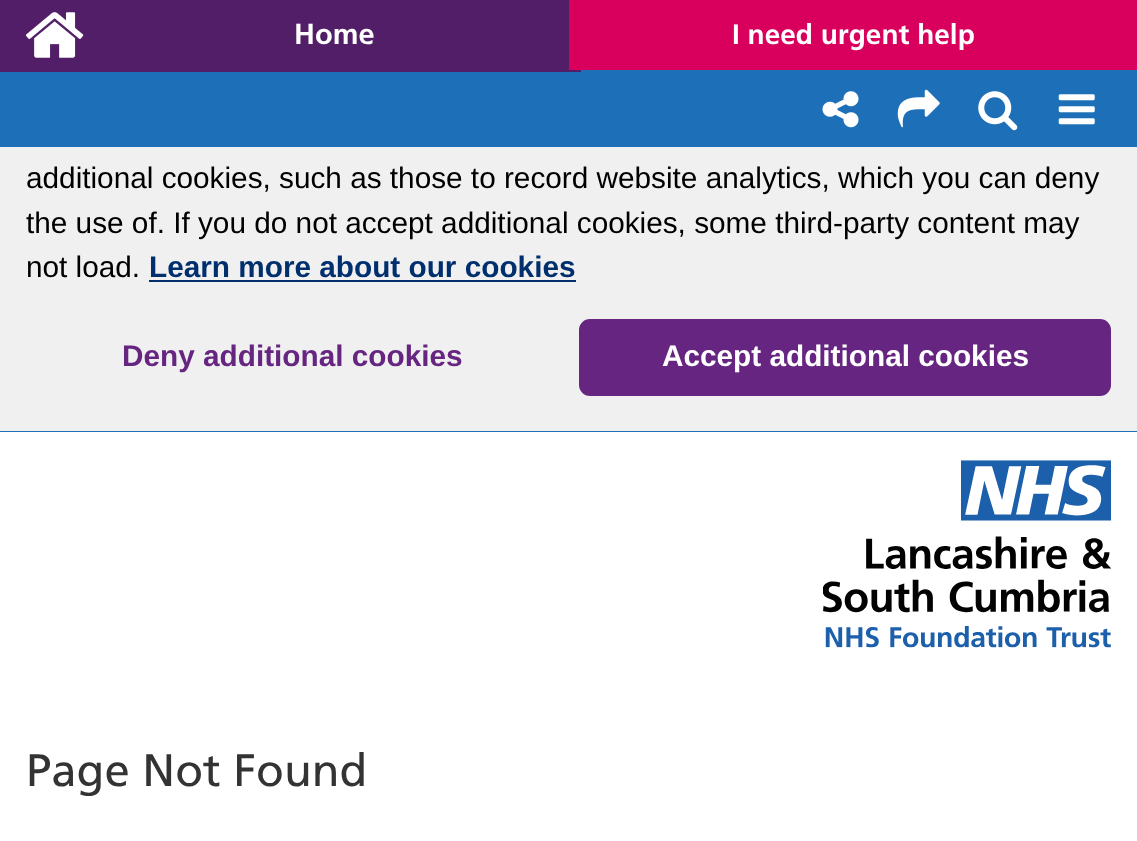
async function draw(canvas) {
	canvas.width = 1137;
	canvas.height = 841;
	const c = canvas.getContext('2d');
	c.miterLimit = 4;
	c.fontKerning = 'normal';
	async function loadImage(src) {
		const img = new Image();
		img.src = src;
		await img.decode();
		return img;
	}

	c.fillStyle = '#f0f0f0';
	c.fillRect(0, 0, 1137, 841);
	for (const [x, y, w, h, color] of [
		[0, 432, 1137, 409, '#fff'],
		[0, 70, 1137, 77, '#1d70b7'],
		[0, 0, 581, 72, '#521e68'],
	]) {
		c.fillStyle = color;
		c.fillRect(x, y, w, h);
	}
	c.drawImage(await loadImage('img1.png'), 26, 12, 58, 46);
	c.font = 'bold 29px Frutiger';
	c.fillStyle = '#fff';
	c.fillText('Home', 294, 44);
	c.fillStyle = '#d8005c';
	c.fillRect(569, 0, 568, 70);
	c.font = 'bold 28px Frutiger';
	c.fillStyle = '#fff';
	c.fillText('I need urgent help', 732, 44);
	c.drawImage(await loadImage('img2.png'), 822, 91, 37, 37);
	c.drawImage(await loadImage('img3.png'), 897, 89, 43, 39);
	c.drawImage(await loadImage('img4.png'), 978, 91, 40, 40);
	c.drawImage(await loadImage('img5.png'), 1058, 94, 37, 31);
	c.drawImage(await loadImage('img6.png'), 823, 460, 288, 188);
	c.font = '45.5px Frutiger';
	c.fillStyle = '#333';
	c.fillText('Page Not Found', 26, 786);
	c.fillStyle = '#1d70b7';
	c.fillRect(0, 431, 1137, 1);
	c.font = '29.75px Liberation Sans';
	c.fillStyle = '#000';
	for (const [text, x, y] of [
		['additional cookies, such as those to record website analytics, which you can deny', 26, 188],
		['the use of. If you do not accept additional cookies, some third-party content may', 26, 233],
		['not load.', 26, 277],
	]) {
		c.fillText(text, x, y);
	}
	c.font = 'bold 29.75px Liberation Sans';
	c.fillStyle = '#002f6e';
	c.fillText('Learn more about our cookies', 149, 277);
	c.fillRect(149, 280, 427, 2);
	c.fillStyle = '#652580';
	c.fillText('Deny additional cookies', 122, 366);
	c.beginPath();
	c.roundRect(581, 321, 528, 73, 9);
	c.fill();
	c.strokeStyle = '#652580';
	c.lineWidth = 4;
	c.stroke();
	c.fillStyle = '#fff';
	c.fillText('Accept additional cookies', 662, 366);
}

draw(document.querySelector('canvas'));
